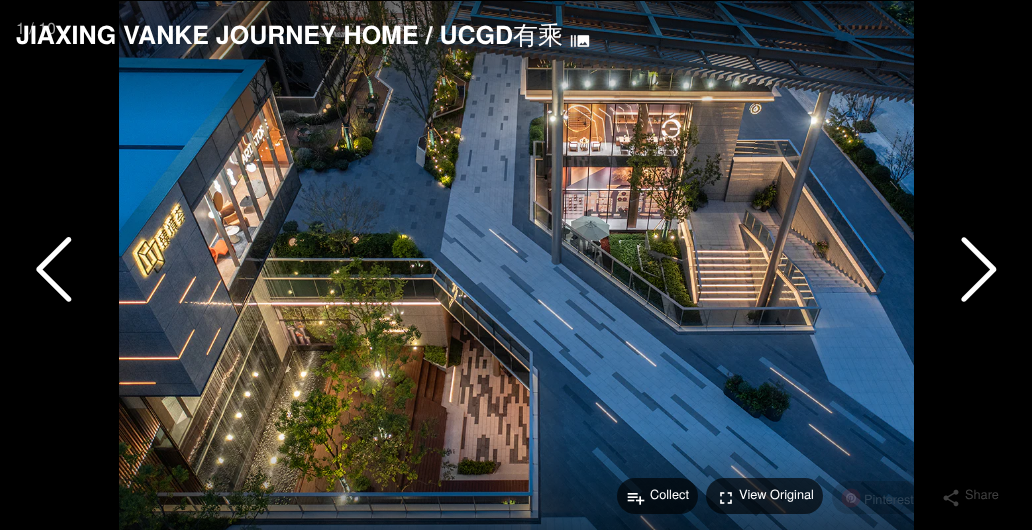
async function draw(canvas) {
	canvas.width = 1032;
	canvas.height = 530;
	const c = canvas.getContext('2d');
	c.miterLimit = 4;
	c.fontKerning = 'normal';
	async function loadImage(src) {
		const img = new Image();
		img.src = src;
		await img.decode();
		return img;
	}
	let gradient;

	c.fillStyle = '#000';
	c.fillRect(0, 0, 1032, 530);
	c.font = '16px TeX Gyre Heros';
	c.fillStyle = '#fff';
	c.fillText('1 / 10', 16, 34);
	c.drawImage(await loadImage('img1.png'), 119, 1, 795, 529);
	gradient = c.createLinearGradient(516, 0, 516, 125);
	gradient.addColorStop(0, '#00000080');
	gradient.addColorStop(1, '#00000000');
	c.fillStyle = gradient;
	c.fillRect(17, 1, 897, 119);
	c.font = 'bold 25px TeX Gyre Heros';
	c.fillStyle = '#fff';
	c.fillText('JIAXING VANKE JOURNEY HOME / UCGD', 16, 44);
	c.font = '500 25px WenQuanYi Zen Hei';
	c.fillText('有乘', 513, 44);
	c.drawImage(await loadImage('img2.png'), 570, 35, 20, 12);
	c.drawImage(await loadImage('img3.png'), 36, 237, 36, 65);
	c.drawImage(await loadImage('img4.png'), 961, 237, 36, 65);
	gradient = c.createLinearGradient(516, 530, 516, 430);
	gradient.addColorStop(0, '#00000080');
	gradient.addColorStop(1, '#00000000');
	c.fillStyle = gradient;
	c.fillRect(119, 434, 795, 96);
	c.fillStyle = '#000000a6';
	c.beginPath();
	c.roundRect(617, 478, 81, 36, 18);
	c.fill();
	c.drawImage(await loadImage('img5.png'), 627, 493, 18, 12);
	c.font = '12.75px TeX Gyre Heros';
	c.fillStyle = '#fff';
	c.fillText('Collect', 650, 499);
	c.fillStyle = '#000000a6';
	c.beginPath();
	c.roundRect(706, 478, 117, 36, 18);
	c.fill();
	c.drawImage(await loadImage('img6.png'), 720, 492, 12, 12);
	c.fillStyle = '#fff';
	c.fillText('View Original', 739, 499);
	c.fillStyle = '#00000029';
	c.beginPath();
	c.roundRect(832, 481, 92, 33, 16.5);
	c.fill();
	c.drawImage(await loadImage('img7.png'), 841, 488, 20, 20);
	c.fillStyle = '#2e4254';
	c.fillText('Pinterest', 864, 504);
	c.drawImage(await loadImage('img8.png'), 943, 489, 16, 18);
	c.fillStyle = '#404040';
	c.fillText('Share', 965, 499);
}

draw(document.querySelector('canvas'));
